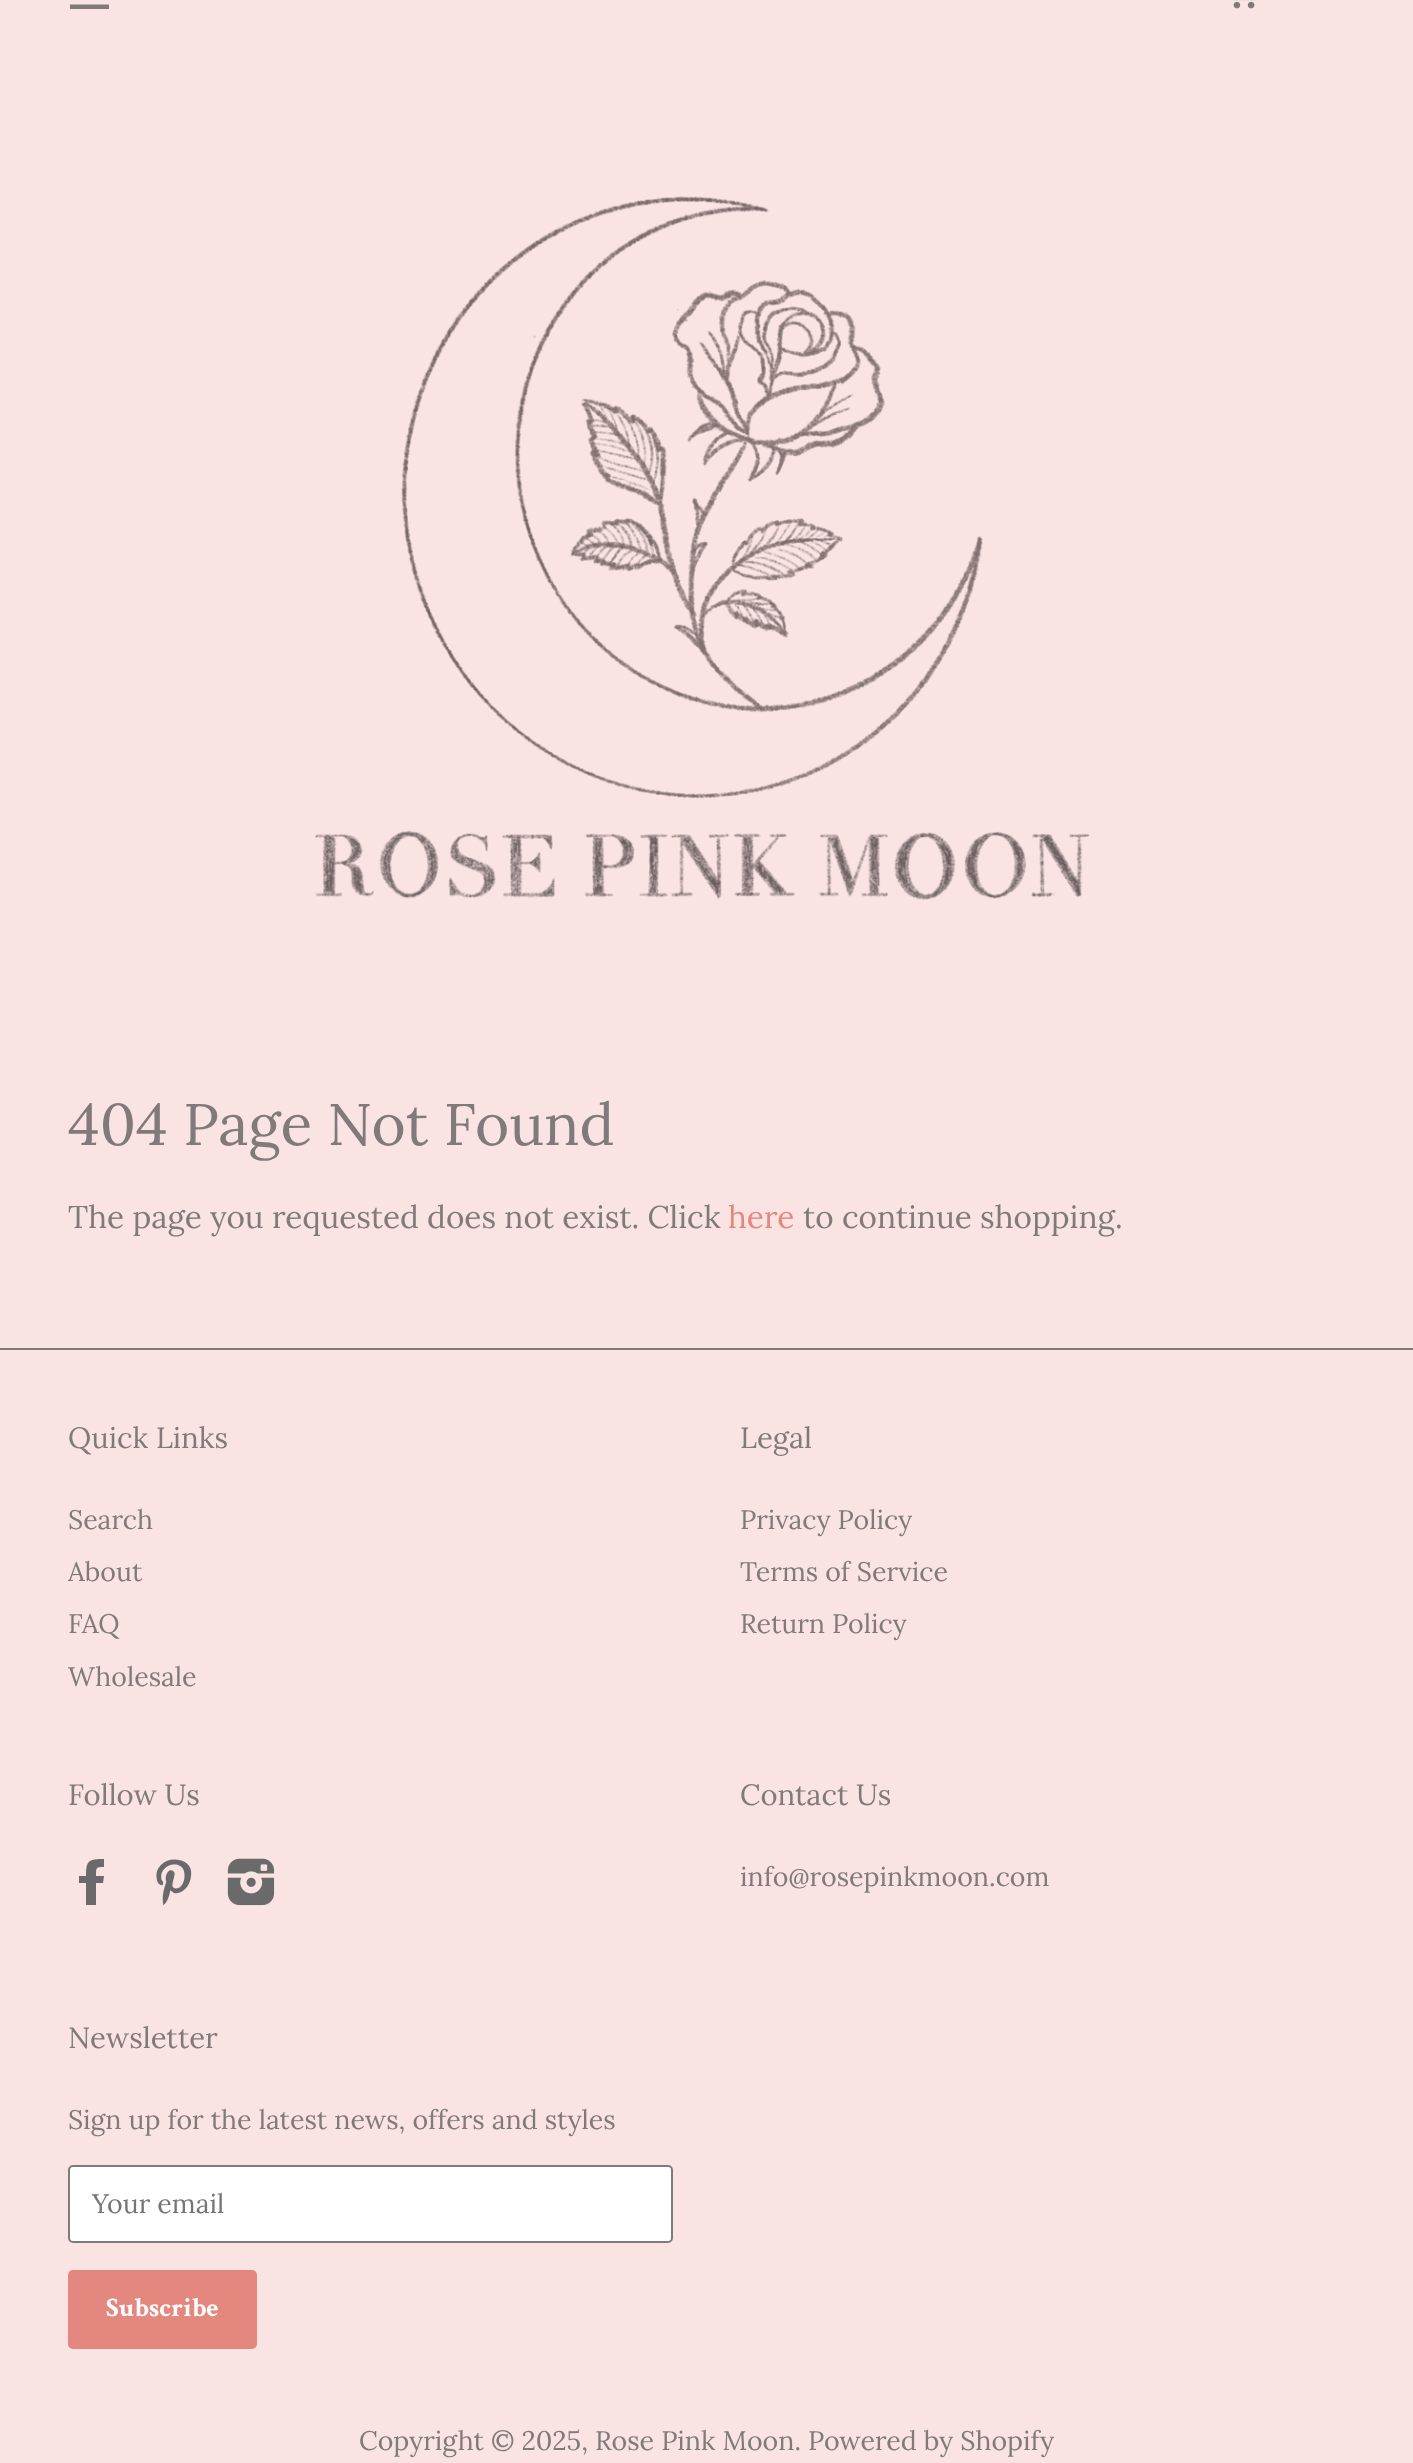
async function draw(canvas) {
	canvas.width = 1413;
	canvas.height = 2463;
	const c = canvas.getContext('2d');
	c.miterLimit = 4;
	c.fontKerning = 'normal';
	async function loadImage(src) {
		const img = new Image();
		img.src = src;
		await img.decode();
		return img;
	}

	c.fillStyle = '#f9e3e3';
	c.fillRect(0, 0, 1413, 2463);
	c.fillStyle = '#817a7a';
	c.beginPath();
	c.moveTo(70, -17.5);
	c.lineTo(109, -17.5);
	c.lineTo(109, -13);
	c.lineTo(70, -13);
	c.closePath();
	c.moveTo(70, -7);
	c.lineTo(109, -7);
	c.lineTo(109, -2.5);
	c.lineTo(70, -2.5);
	c.closePath();
	c.moveTo(70, 4.5);
	c.lineTo(109, 4.5);
	c.lineTo(109, 9);
	c.lineTo(70, 9);
	c.closePath();
	c.fill();
	c.drawImage(await loadImage('img1.png'), 1233, 0, 22, 9);
	c.drawImage(await loadImage('img2.png'), 314, 196, 776, 704);
	c.font = '58.5px Lora';
	c.fillText('404 Page Not Found', 68, 1145);
	c.font = '31.5px Lora';
	c.fillText('The page you requested does not exist. Click', 68, 1228);
	c.fillStyle = '#e4887f';
	c.fillText('here', 728, 1228);
	c.fillStyle = '#817a7a';
	c.fillText('to continue shopping.', 803, 1228);
	c.fillRect(0, 1348, 1413, 2);
	c.font = '29.25px Lora';
	c.fillText('Quick Links', 68, 1448);
	c.font = '26.75px Lora';
	for (const [text, x, y] of [
		['Search', 68, 1529],
		['About', 68, 1581],
		['FAQ', 68, 1633],
		['Wholesale', 68, 1686],
	]) {
		c.fillText(text, x, y);
	}
	c.font = '29.25px Lora';
	c.fillText('Legal', 740, 1448);
	c.font = '26.75px Lora';
	for (const [text, x, y] of [
		['Privacy Policy', 740, 1529],
		['Terms of Service', 740, 1581],
		['Return Policy', 740, 1633],
	]) {
		c.fillText(text, x, y);
	}
	c.font = '29.25px Lora';
	c.fillText('Follow Us', 68, 1805);
	c.fillStyle = '#6a6a6a';
	c.beginPath();
	c.moveTo(96, 1905);
	c.lineTo(96, 1883);
	c.lineTo(103, 1883);
	c.lineTo(104, 1876);
	c.lineTo(96, 1876);
	c.bezierCurveTo(96, 1867, 96, 1867, 104, 1867);
	c.lineTo(104, 1859);
	c.bezierCurveTo(89, 1859, 86, 1860, 86, 1876);
	c.lineTo(79, 1876);
	c.lineTo(79, 1883);
	c.lineTo(86, 1883);
	c.lineTo(86, 1905);
	c.closePath();
	c.fill();
	c.drawImage(await loadImage('img3.png'), 156, 1859, 36, 47);
	c.drawImage(await loadImage('img4.png'), 227, 1858, 48, 48);
	c.fillStyle = '#817a7a';
	c.fillText('Contact Us', 740, 1805);
	c.font = '26.75px Lora';
	c.fillText('info@rosepinkmoon.com', 740, 1886);
	c.font = '29.25px Lora';
	c.fillText('Newsletter', 68, 2048);
	c.font = '26.75px Lora';
	c.fillText('Sign up for the latest news, offers and styles', 68, 2129);
	c.fillStyle = '#fff';
	c.beginPath();
	c.roundRect(69, 2166, 603, 76, 4);
	c.fill();
	c.strokeStyle = '#817a7a';
	c.lineWidth = 2;
	c.stroke();
	c.fillStyle = '#757575';
	c.fillText('Your email', 92, 2213);
	c.fillStyle = '#e4887f';
	c.beginPath();
	c.roundRect(68, 2270, 189, 79, 5);
	c.fill();
	c.font = 'bold 26.75px Crimson Text';
	c.fillStyle = '#fff';
	c.fillText('Subscribe', 106, 2316);
	c.font = '26.75px Lora';
	c.fillStyle = '#817a7a';
	c.fillText('Copyright © 2025, Rose Pink Moon. Powered by Shopify', 359, 2450);
}

draw(document.querySelector('canvas'));
